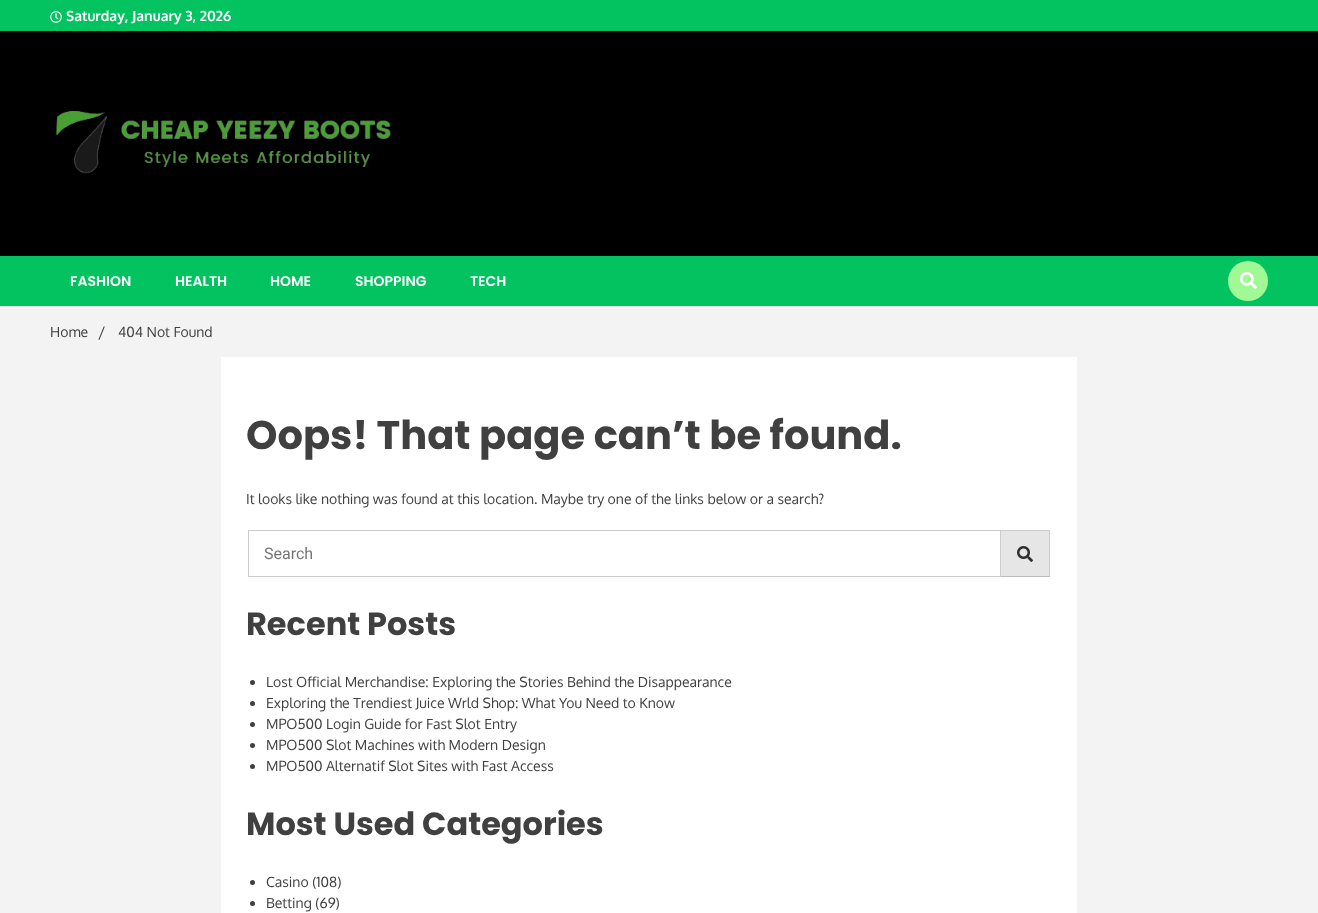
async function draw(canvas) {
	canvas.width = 1318;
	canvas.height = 913;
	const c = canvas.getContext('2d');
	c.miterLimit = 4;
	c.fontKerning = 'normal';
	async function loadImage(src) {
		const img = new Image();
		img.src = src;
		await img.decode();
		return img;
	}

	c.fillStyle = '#f3f3f3';
	c.fillRect(0, 0, 1318, 913);
	c.fillStyle = '#03c361';
	c.fillRect(0, 0, 1318, 31);
	c.drawImage(await loadImage('img1.png'), 50, 11, 12, 12);
	c.font = 'bold 14px Oxygen';
	c.fillStyle = '#fff';
	c.fillText('Saturday, January 3, 2026', 66, 21);
	c.fillStyle = '#000';
	c.fillRect(0, 31, 1318, 225);
	c.drawImage(await loadImage('img2.png'), 56, 111, 335, 63);
	c.strokeStyle = '#0000000f';
	c.strokeRect(-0.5, 255.5, 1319, 51);
	c.fillStyle = '#03c361';
	c.fillRect(0, 256, 1318, 50);
	c.font = '600 14px Poppins';
	c.fillStyle = '#fff';
	for (const [text, x, y] of [
		['FASHION', 70, 286],
		['HEALTH', 175, 286],
		['HOME', 270, 286],
		['SHOPPING', 355, 286],
		['TECH', 470, 286],
	]) {
		c.fillText(text, x, y);
	}
	c.fillStyle = '#a1f996';
	c.beginPath();
	c.arc(1248, 281, 20, 0, 2 * Math.PI);
	c.fill();
	c.drawImage(await loadImage('img3.png'), 1240, 272, 17, 17);
	c.font = '14px Oxygen';
	c.fillStyle = '#404040';
	c.fillText('Home', 50, 337);
	c.font = '16px Oxygen';
	c.fillText('/', 98, 338);
	c.font = '14px Oxygen';
	c.fillText('404 Not Found', 118, 337);
	c.fillStyle = '#fff';
	c.fillRect(221, 357, 856, 556);
	c.font = 'bold 40px Poppins';
	c.fillStyle = '#404040';
	c.fillText('Oops! That page can’t be found.', 246, 449);
	c.font = '14px Oxygen';
	c.fillText('It looks like nothing was found at this location. Maybe try one of the links below or a search?', 246, 504);
	c.strokeStyle = '#ccc';
	c.strokeRect(248.5, 530.5, 801, 46);
	c.font = '16px Roboto';
	c.fillStyle = '#757575';
	c.fillText('Search', 264, 559);
	for (const [x, y, w, h, color] of [
		[1001, 531, 48, 45, '#e6e6e6'],
		[1000, 576, 50, 1, '#bbb'],
		[1000, 530, 1, 47, '#ccc'],
	]) {
		c.fillStyle = color;
		c.fillRect(x, y, w, h);
	}
	c.drawImage(await loadImage('img4.png'), 1017, 546, 16, 16);
	c.font = 'bold 32px Poppins';
	c.fillStyle = '#404040';
	c.fillText('Recent Posts', 246, 635);
	c.beginPath();
	c.arc(252.5, 682.5, 2.5, 0, 2 * Math.PI);
	c.fill();
	c.font = '14px Oxygen';
	c.fillText('Lost Official Merchandise: Exploring the Stories Behind the Disappearance', 266, 687);
	c.beginPath();
	c.arc(252.5, 703.5, 2.5, 0, 2 * Math.PI);
	c.fill();
	c.fillText('Exploring the Trendiest Juice Wrld Shop: What You Need to Know', 266, 708);
	c.beginPath();
	c.arc(252.5, 724.5, 2.5, 0, 2 * Math.PI);
	c.fill();
	c.fillText('MPO500 Login Guide for Fast Slot Entry', 266, 729);
	c.beginPath();
	c.arc(252.5, 745.5, 2.5, 0, 2 * Math.PI);
	c.fill();
	c.fillText('MPO500 Slot Machines with Modern Design', 266, 750);
	c.beginPath();
	c.arc(252.5, 766.5, 2.5, 0, 2 * Math.PI);
	c.fill();
	c.fillText('MPO500 Alternatif Slot Sites with Fast Access', 266, 771);
	c.font = 'bold 32px Poppins';
	c.fillText('Most Used Categories', 246, 835);
	c.beginPath();
	c.arc(252.5, 882.5, 2.5, 0, 2 * Math.PI);
	c.fill();
	c.font = '14px Oxygen';
	c.fillText('Casino (108)', 266, 887);
	c.beginPath();
	c.arc(252.5, 903.5, 2.5, 0, 2 * Math.PI);
	c.fill();
	c.fillText('Betting (69)', 266, 908);
}

draw(document.querySelector('canvas'));
